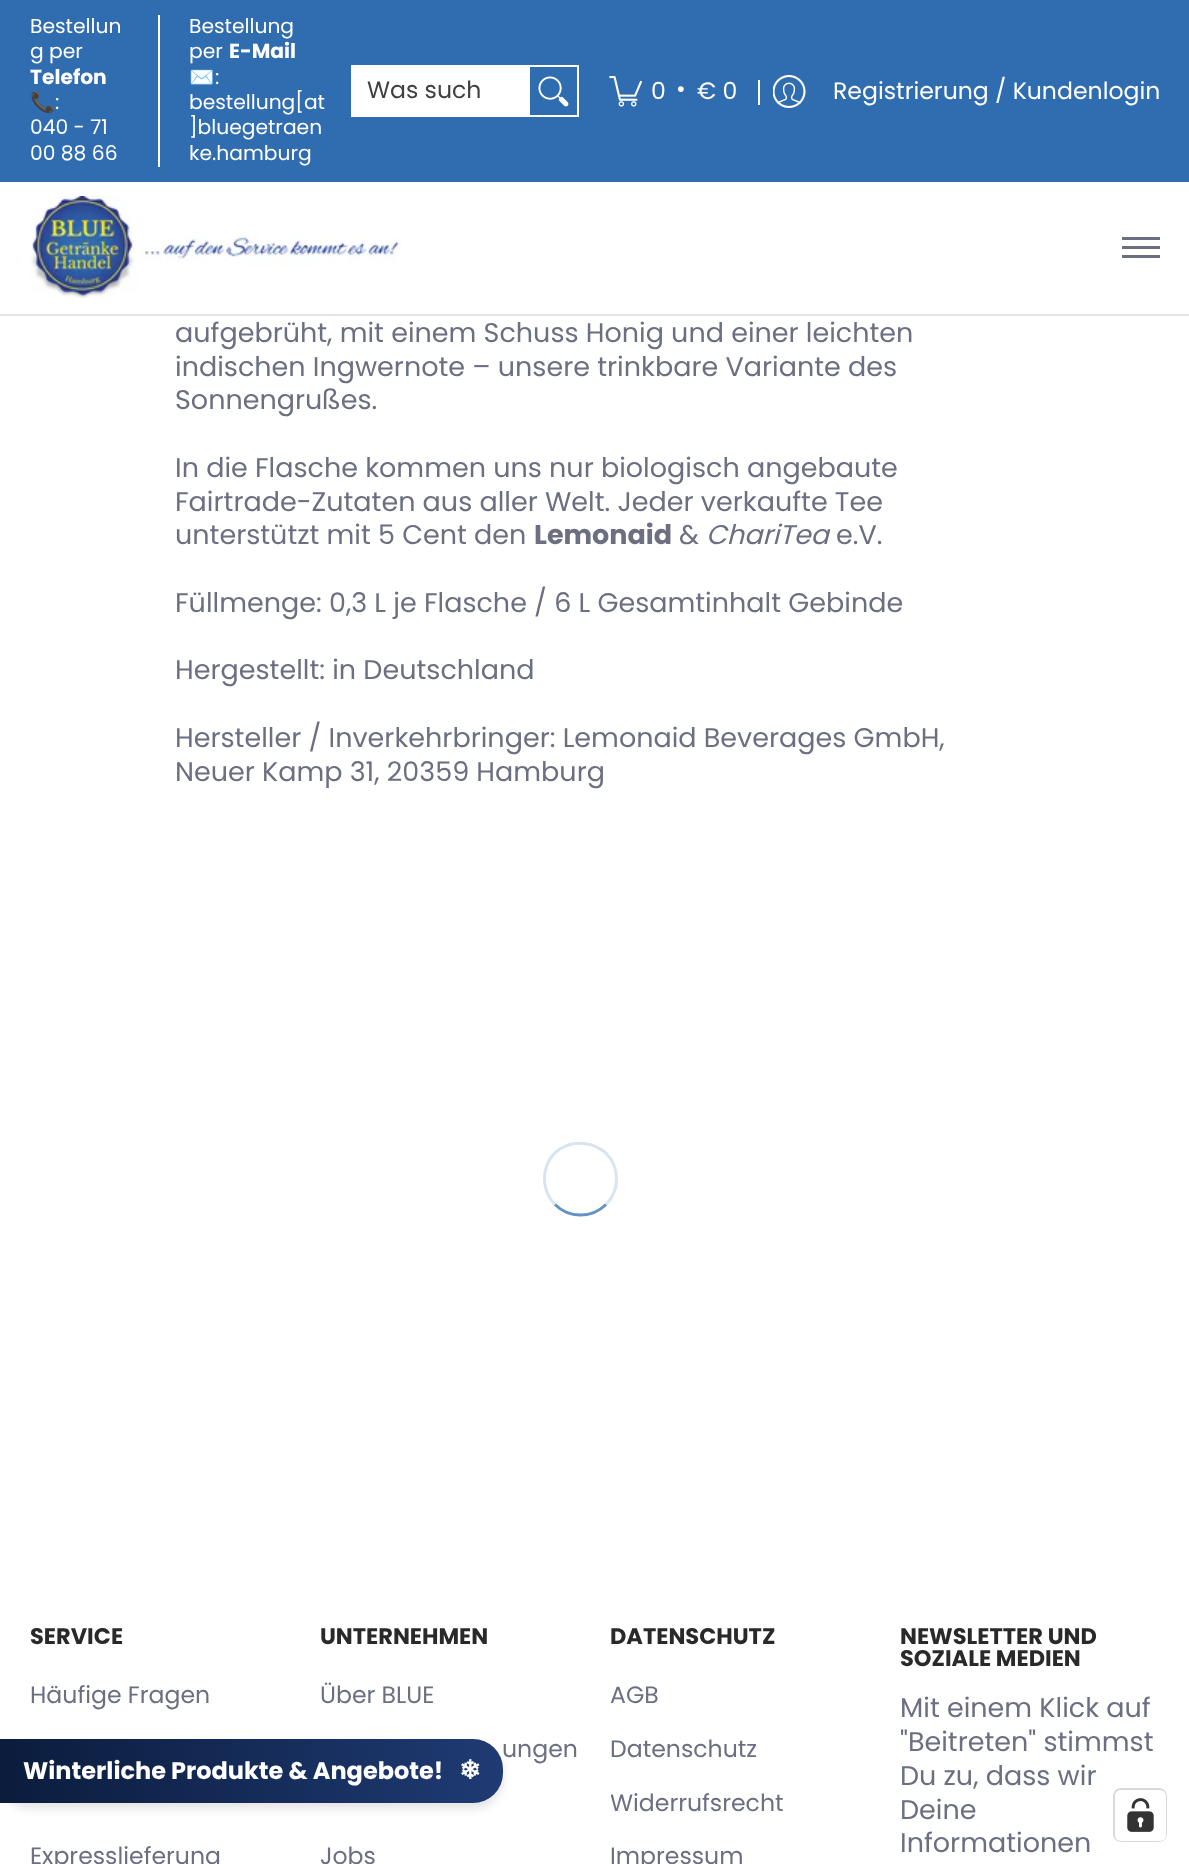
async function draw(canvas) {
	canvas.width = 1189;
	canvas.height = 1864;
	const c = canvas.getContext('2d');
	c.miterLimit = 4;
	c.fontKerning = 'normal';
	async function loadImage(src) {
		const img = new Image();
		img.src = src;
		await img.decode();
		return img;
	}
	let gradient;

	c.fillStyle = '#fff';
	c.fillRect(0, 0, 1189, 1864);
	c.fillStyle = '#306db0';
	c.fillRect(0, 0, 1189, 182);
	c.font = '20.25px Poppins';
	c.fillStyle = '#fff';
	c.fillText('Bestellun', 30, 33);
	c.fillText('g per', 30, 58);
	c.font = 'bold 20.25px Poppins';
	c.fillText('Telefon', 30, 84);
	c.font = '20.25px Noto Color Emoji';
	c.fillText('📞', 30, 109);
	c.font = '20.25px Poppins';
	for (const [text, x, y] of [
		[':', 55, 109],
		['040 - 71', 30, 134],
		['00 88 66', 30, 160],
	]) {
		c.fillText(text, x, y);
	}
	c.fillRect(158, 15, 2, 152);
	c.fillText('Bestellung', 189, 33);
	c.fillText('per', 189, 58);
	c.font = 'bold 20.25px Poppins';
	c.fillText('E-Mail', 229, 58);
	c.font = '20.25px Noto Color Emoji';
	c.fillText('✉️', 189, 84);
	c.font = '20.25px Poppins';
	for (const [text, x, y] of [
		[':', 215, 84],
		['bestellung[at', 189, 109],
		[']bluegetraen', 189, 134],
		['ke.hamburg', 189, 160],
	]) {
		c.fillText(text, x, y);
	}
	c.strokeStyle = '#fff';
	c.lineWidth = 2;
	c.strokeRect(352, 66, 226, 50);
	c.fillRect(353, 67, 177, 48);
	c.font = '23.6px Poppins';
	c.fillStyle = '#404040';
	c.fillText('Was such', 367, 98);
	c.drawImage(await loadImage('img1.png'), 538, 76, 31, 31);
	c.drawImage(await loadImage('img2.png'), 609, 76, 33, 31);
	c.fillStyle = '#fff';
	for (const [text, x, y] of [
		['0', 651, 99],
		['•', 676, 97],
		['€ 0', 697, 99],
	]) {
		c.fillText(text, x, y);
	}
	c.fillRect(758, 80, 2, 25);
	c.drawImage(await loadImage('img3.png'), 773, 75, 33, 33);
	c.fillText('Registrierung / Kundenlogin', 833, 99);
	c.fillStyle = '#e4e4e4';
	c.fillRect(0, 314, 1189, 2);
	c.drawImage(await loadImage('img4.png'), 30, 196, 372, 102);
	for (const [x, y, w, h, color] of [
		[1122, 237, 38, 3, '#6b6f81'],
		[1122, 255, 38, 3, '#6b6f81'],
		[1122, 246, 38, 3, '#6b6f81'],
	]) {
		c.fillStyle = color;
		c.fillRect(x, y, w, h);
	}
	c.font = '27px Poppins';
	for (const [text, x, y] of [
		['aufgebrüht, mit einem Schuss Honig und einer leichten', 175, 342],
		['indischen Ingwernote – unsere trinkbare Variante des', 175, 376],
		['Sonnengrußes.', 175, 409],
		['In die Flasche kommen uns nur biologisch angebaute', 175, 477],
		['Fairtrade-Zutaten aus aller Welt. Jeder verkaufte Tee', 175, 511],
		['unterstützt mit 5 Cent den', 175, 544],
	]) {
		c.fillText(text, x, y);
	}
	c.font = 'bold 27px Poppins';
	c.fillText('Lemonaid', 534, 544);
	c.font = '27px Poppins';
	c.fillText('&', 679, 544);
	c.font = 'italic 27px Poppins';
	c.fillText('ChariTea', 706, 544);
	c.font = '27px Poppins';
	for (const [text, x, y] of [
		['e.V.', 836, 544],
		['Füllmenge: 0,3 L je Flasche / 6 L Gesamtinhalt Gebinde', 175, 612],
		['Hergestellt: in Deutschland', 175, 679],
		['Hersteller / Inverkehrbringer: Lemonaid Beverages GmbH,', 175, 747],
		['Neuer Kamp 31, 20359 Hamburg', 175, 781],
	]) {
		c.fillText(text, x, y);
	}
	c.beginPath();
	c.moveTo(606, 1204.5);
	c.bezierCurveTo(592, 1218.5, 569, 1218.5, 555, 1204.5);
	c.strokeStyle = '#6492c4';
	c.lineWidth = 3;
	c.stroke();
	c.beginPath();
	c.moveTo(555, 1204.5);
	c.bezierCurveTo(546.5, 1196, 543, 1183.5, 545, 1172);
	c.bezierCurveTo(553.5, 1129.5, 616.5, 1136, 616.5, 1179);
	c.bezierCurveTo(616.5, 1188.5, 612.5, 1198, 606, 1204.5);
	c.strokeStyle = '#6492c440';
	c.stroke();
	c.font = 'bold 22.5px Poppins';
	c.fillStyle = '#292929';
	c.fillText('SERVICE', 30, 1644);
	c.font = '23.6px Poppins';
	c.fillStyle = '#6b6f81';
	c.fillText('Häufige Fragen', 30, 1703);
	c.fillText('Expresslieferung', 30, 1864);
	c.font = 'bold 22.5px Poppins';
	c.fillStyle = '#292929';
	c.fillText('UNTERNEHMEN', 320, 1644);
	c.font = '23.6px Poppins';
	c.fillStyle = '#6b6f81';
	for (const [text, x, y] of [
		['Über BLUE', 320, 1703],
		['ungen', 502, 1757],
		['Jobs', 320, 1864],
	]) {
		c.fillText(text, x, y);
	}
	c.font = 'bold 22.5px Poppins';
	c.fillStyle = '#292929';
	c.fillText('DATENSCHUTZ', 610, 1644);
	c.font = '23.6px Poppins';
	c.fillStyle = '#6b6f81';
	c.fillText('AGB', 610, 1703);
	c.fillText('Datenschutz', 610, 1757);
	c.save();
	c.beginPath();
	c.rect(611, 1670, 259, 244);
	c.clip();
	c.fillText('Widerrufsrecht', 610, 1811);
	c.restore();
	c.fillText('Impressum', 610, 1864);
	c.font = 'bold 22.5px Poppins';
	c.fillStyle = '#292929';
	c.fillText('NEWSLETTER UND', 900, 1644);
	c.fillText('SOZIALE MEDIEN', 900, 1666);
	c.font = '27px Poppins';
	c.fillStyle = '#6b6f81';
	for (const [text, x, y] of [
		['Mit einem Klick auf', 900, 1717],
		['"Beitreten" stimmst', 900, 1751],
		['Du zu, dass wir', 900, 1785],
		['Deine', 900, 1819],
		['Informationen', 900, 1852],
	]) {
		c.fillText(text, x, y);
	}
	c.fillStyle = '#0000001a';
	c.filter = 'blur(4.5px)';
	c.beginPath();
	c.roundRect(0, 1745, 503, 64, 30);
	c.fill();
	c.filter = 'none';
	gradient = c.createLinearGradient(0, 1771, 503, 1771);
	gradient.addColorStop(0, '#0b1c3d');
	gradient.addColorStop(1, '#1f3b73');
	c.fillStyle = gradient;
	c.beginPath();
	c.roundRect(0, 1739, 503, 64, [0, 30, 30, 0]);
	c.fill();
	c.font = 'bold 24px Poppins';
	c.fillStyle = '#fff';
	c.fillText('Winterliche Produkte & Angebote!', 23, 1779);
	c.font = 'bold 26px DejaVu Sans';
	c.fillText('❄', 459, 1779);
	c.beginPath();
	c.roundRect(1114, 1789, 52, 52, 7);
	c.strokeStyle = '#d9d9d9';
	c.lineWidth = 2;
	c.stroke();
	c.beginPath();
	c.roundRect(1115, 1790, 51, 51, 6);
	c.fill();
	c.drawImage(await loadImage('img5.png'), 1127, 1798, 27, 34);
}

draw(document.querySelector('canvas'));
